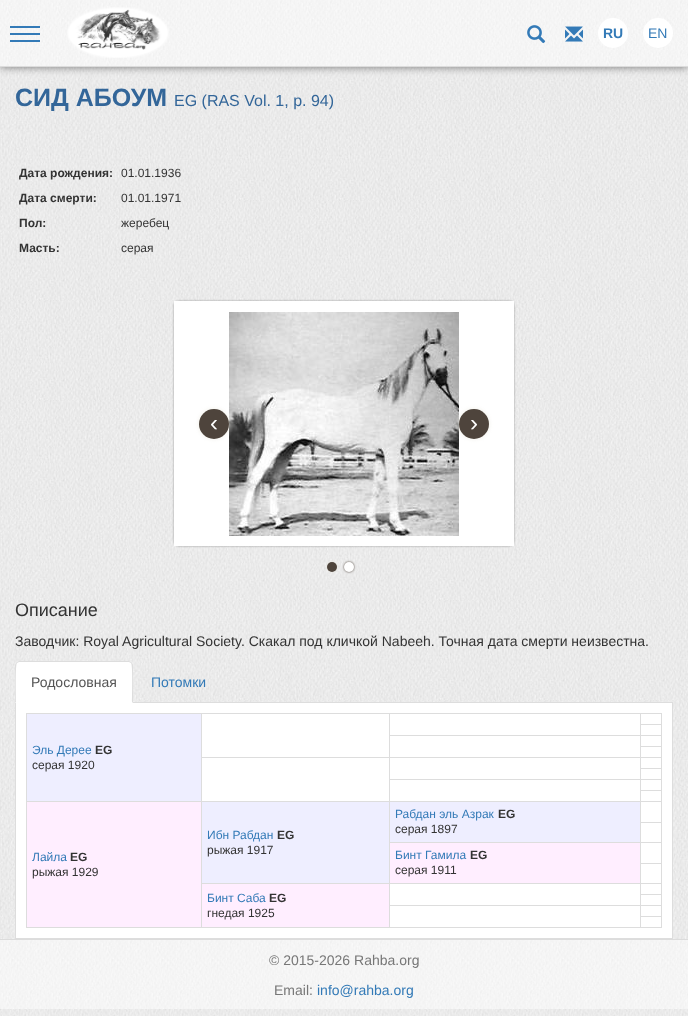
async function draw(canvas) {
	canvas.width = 688;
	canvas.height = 1016;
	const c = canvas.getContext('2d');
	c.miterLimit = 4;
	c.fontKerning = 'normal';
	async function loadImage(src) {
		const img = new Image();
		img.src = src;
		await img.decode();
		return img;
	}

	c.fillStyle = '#fff';
	c.fillRect(0, 0, 688, 1016);
	c.drawImage(await loadImage('img1.png'), 0, 67, 688, 949);
	c.fillStyle = '#00000080';
	c.filter = 'blur(4px)';
	c.beginPath();
	c.rect(0, 0, 688, 67);
	c.fill();
	c.filter = 'none';
	c.drawImage(await loadImage('img2.png'), 0, 0, 688, 66);
	for (const [x, y, w, h, color] of [
		[0, 66, 688, 1, '#dcdcdc'],
		[10, 33, 30, 2, '#337ab7'],
		[10, 26, 30, 2, '#337ab7'],
		[10, 40, 30, 2, '#337ab7'],
	]) {
		c.fillStyle = color;
		c.fillRect(x, y, w, h);
	}
	c.drawImage(await loadImage('img3.png'), 67, 7, 102, 51);
	c.drawImage(await loadImage('img4.png'), 527, 25, 19, 19);
	c.drawImage(await loadImage('img5.png'), 565, 26, 18, 16);
	c.fillStyle = '#fff';
	c.beginPath();
	c.arc(613, 33, 15, 0, 2 * Math.PI);
	c.fill();
	c.font = 'bold 14px Liberation Sans';
	c.fillStyle = '#337ab7';
	c.fillText('RU', 603, 38);
	c.fillStyle = '#fff';
	c.beginPath();
	c.arc(658, 33, 15, 0, 2 * Math.PI);
	c.fill();
	c.font = '14px Liberation Sans';
	c.fillStyle = '#337ab7';
	c.fillText('EN', 648, 38);
	c.font = 'bold 25px Liberation Sans';
	c.fillStyle = '#369';
	c.fillText('СИД АБОУМ', 15, 106);
	c.font = '16px Liberation Sans';
	c.fillText('EG (RAS Vol. 1, p. 94)', 174, 106);
	c.font = 'bold 12px Liberation Sans';
	c.fillStyle = '#333';
	c.fillText('Дата рождения:', 19, 177);
	c.font = '12px Liberation Sans';
	c.fillText('01.01.1936', 121, 177);
	c.font = 'bold 12px Liberation Sans';
	c.fillText('Дата смерти:', 19, 202);
	c.font = '12px Liberation Sans';
	c.fillText('01.01.1971', 121, 202);
	c.font = 'bold 12px Liberation Sans';
	c.fillText('Пол:', 19, 227);
	c.font = '12px Liberation Sans';
	c.fillText('жеребец', 121, 227);
	c.font = 'bold 12px Liberation Sans';
	c.fillText('Масть:', 19, 252);
	c.font = '12px Liberation Sans';
	c.fillText('серая', 121, 252);
	c.fillStyle = '#999';
	c.filter = 'blur(1px)';
	c.beginPath();
	c.roundRect(174, 301, 340, 245, 5);
	c.fill();
	c.filter = 'none';
	c.beginPath();
	c.rect(179, 306, 330, 235);
	c.strokeStyle = '#fff';
	c.lineWidth = 10;
	c.stroke();
	c.fillStyle = '#fff';
	c.fillRect(184, 311, 320, 225);
	c.drawImage(await loadImage('img6.png'), 229, 312, 230, 224);
	c.fillStyle = '#f0efe7';
	c.filter = 'blur(2px)';
	c.beginPath();
	c.roundRect(199, 409, 30, 30, 15);
	c.fill();
	c.filter = 'none';
	c.fillStyle = '#4e443c';
	c.beginPath();
	c.arc(214, 424, 15, 0, 2 * Math.PI);
	c.fill();
	c.font = '24px Liberation Sans';
	c.fillStyle = '#fff';
	c.fillText('‹', 210, 431);
	c.fillStyle = '#f0efe7';
	c.filter = 'blur(2px)';
	c.beginPath();
	c.roundRect(459, 409, 30, 30, 15);
	c.fill();
	c.filter = 'none';
	c.fillStyle = '#4e443c';
	c.beginPath();
	c.arc(474, 424, 15, 0, 2 * Math.PI);
	c.fill();
	c.fillStyle = '#fff';
	c.fillText('›', 470, 431);
	c.fillStyle = '#f0efe7';
	c.filter = 'blur(1px)';
	c.beginPath();
	c.roundRect(327, 562, 10, 10, 5);
	c.fill();
	c.filter = 'none';
	c.fillStyle = '#4e443c';
	c.beginPath();
	c.arc(332, 567, 5, 0, 2 * Math.PI);
	c.fill();
	c.filter = 'blur(1px)';
	c.beginPath();
	c.roundRect(344, 562, 10, 10, 5);
	c.fill();
	c.filter = 'none';
	c.fillStyle = '#fff';
	c.beginPath();
	c.arc(349, 567, 5, 0, 2 * Math.PI);
	c.fill();
	c.font = '18px Liberation Sans';
	c.fillStyle = '#333';
	c.fillText('Описание', 15, 616);
	c.font = '14px Liberation Sans';
	c.fillText('Заводчик: Royal Agricultural Society. Скакал под кличкой Nabeeh. Точная дата смерти неизвестна.', 15, 646);
	c.fillStyle = '#ddd';
	c.fillRect(133, 702, 540, 1);
	c.fillStyle = '#fff';
	c.beginPath();
	c.roundRect(15, 661, 118, 42, [4, 4, 0, 0]);
	c.fill();
	c.fillStyle = '#ddd';
	c.beginPath();
	c.moveTo(19, 661);
	c.lineTo(16, 662);
	c.lineTo(17, 663);
	c.lineTo(19, 662);
	c.lineTo(129, 662);
	c.lineTo(131, 663);
	c.lineTo(132, 662);
	c.lineTo(129, 661);
	c.closePath();
	c.fill();
	c.beginPath();
	c.moveTo(133, 703);
	c.lineTo(133, 665);
	c.bezierCurveTo(133, 664, 132, 663, 132, 662);
	c.lineTo(131, 663);
	c.bezierCurveTo(133, 665, 132, 697, 132, 702);
	c.closePath();
	c.fill();
	c.beginPath();
	c.moveTo(15, 703);
	c.lineTo(16, 702);
	c.bezierCurveTo(16, 697, 15, 665, 17, 663);
	c.lineTo(16, 662);
	c.lineTo(15, 665);
	c.closePath();
	c.fill();
	c.fillStyle = '#555';
	c.fillText('Родословная', 31, 687);
	c.fillStyle = '#337ab7';
	c.fillText('Потомки', 151, 687);
	for (const [x, y, w, h, color] of [
		[16, 703, 656, 235, '#fff'],
		[672, 703, 1, 236, '#ddd'],
		[15, 938, 658, 1, '#ddd'],
		[15, 703, 1, 236, '#ddd'],
		[26, 713, 636, 1, '#ddd'],
		[661, 713, 1, 215, '#ddd'],
		[26, 927, 636, 1, '#ddd'],
		[26, 713, 1, 215, '#ddd'],
		[640, 757, 22, 1, '#ddd'],
		[640, 768, 22, 1, '#ddd'],
		[640, 779, 22, 1, '#ddd'],
		[640, 790, 22, 1, '#ddd'],
		[640, 801, 22, 1, '#ddd'],
		[640, 822, 22, 1, '#ddd'],
		[640, 842, 22, 1, '#ddd'],
		[640, 863, 22, 1, '#ddd'],
		[640, 883, 22, 1, '#ddd'],
		[640, 894, 22, 1, '#ddd'],
		[640, 905, 22, 1, '#ddd'],
		[640, 916, 22, 1, '#ddd'],
		[640, 916, 1, 12, '#ddd'],
		[640, 905, 1, 12, '#ddd'],
		[389, 905, 252, 1, '#ddd'],
		[640, 894, 1, 12, '#ddd'],
		[640, 883, 1, 12, '#ddd'],
		[389, 883, 252, 1, '#ddd'],
		[640, 863, 1, 21, '#ddd'],
		[640, 842, 1, 22, '#ddd'],
		[389, 842, 252, 1, '#ddd'],
		[640, 822, 1, 21, '#ddd'],
		[640, 801, 1, 22, '#ddd'],
		[389, 801, 252, 1, '#ddd'],
		[640, 790, 1, 12, '#ddd'],
		[640, 779, 1, 12, '#ddd'],
		[389, 779, 252, 1, '#ddd'],
		[640, 768, 1, 12, '#ddd'],
		[640, 757, 1, 12, '#ddd'],
		[389, 757, 252, 1, '#ddd'],
		[389, 905, 1, 23, '#ddd'],
		[389, 883, 1, 23, '#ddd'],
		[201, 883, 189, 1, '#ddd'],
		[389, 842, 1, 42, '#ddd'],
		[389, 801, 1, 42, '#ddd'],
		[201, 801, 189, 1, '#ddd'],
		[389, 779, 1, 23, '#ddd'],
		[389, 757, 1, 23, '#ddd'],
		[201, 757, 189, 1, '#ddd'],
		[201, 883, 1, 45, '#ddd'],
		[201, 801, 1, 83, '#ddd'],
		[26, 801, 176, 1, '#ddd'],
		[201, 713, 1, 89, '#ddd'],
		[640, 735, 22, 1, '#ddd'],
		[640, 746, 22, 1, '#ddd'],
		[640, 746, 1, 12, '#ddd'],
		[640, 735, 1, 12, '#ddd'],
		[389, 735, 252, 1, '#ddd'],
		[389, 713, 1, 45, '#ddd'],
		[640, 724, 22, 1, '#ddd'],
		[640, 713, 1, 23, '#ddd'],
		[27, 714, 174, 87, '#eef'],
	]) {
		c.fillStyle = color;
		c.fillRect(x, y, w, h);
	}
	c.font = '12px Liberation Sans';
	c.fillStyle = '#337ab7';
	c.fillText('Эль Дерее', 32, 754);
	c.font = 'bold 12px Liberation Sans';
	c.fillStyle = '#333';
	c.fillText('EG', 95, 754);
	c.font = '12px Liberation Sans';
	c.fillText('серая 1920', 32, 769);
	c.fillStyle = '#eef';
	c.fillRect(390, 802, 250, 40);
	c.fillStyle = '#337ab7';
	c.fillText('Рабдан эль Азрак', 395, 818);
	c.font = 'bold 12px Liberation Sans';
	c.fillStyle = '#333';
	c.fillText('EG', 498, 818);
	c.font = '12px Liberation Sans';
	c.fillText('серая 1897', 395, 833);
	c.fillStyle = '#eef';
	c.fillRect(202, 802, 187, 81);
	c.fillStyle = '#337ab7';
	c.fillText('Ибн Рабдан', 207, 839);
	c.font = 'bold 12px Liberation Sans';
	c.fillStyle = '#333';
	c.fillText('EG', 277, 839);
	c.font = '12px Liberation Sans';
	c.fillText('рыжая 1917', 207, 854);
	c.fillStyle = '#fef';
	c.fillRect(27, 802, 174, 125);
	c.fillStyle = '#337ab7';
	c.fillText('Лайла', 32, 861);
	c.font = 'bold 12px Liberation Sans';
	c.fillStyle = '#333';
	c.fillText('EG', 70, 861);
	c.font = '12px Liberation Sans';
	c.fillText('рыжая 1929', 32, 876);
	c.fillStyle = '#fef';
	c.fillRect(390, 843, 250, 40);
	c.fillStyle = '#337ab7';
	c.fillText('Бинт Гамила', 395, 859);
	c.font = 'bold 12px Liberation Sans';
	c.fillStyle = '#333';
	c.fillText('EG', 470, 859);
	c.font = '12px Liberation Sans';
	c.fillText('серая 1911', 395, 874);
	c.fillStyle = '#fef';
	c.fillRect(202, 884, 187, 43);
	c.fillStyle = '#337ab7';
	c.fillText('Бинт Саба', 207, 902);
	c.font = 'bold 12px Liberation Sans';
	c.fillStyle = '#333';
	c.fillText('EG', 269, 902);
	c.font = '12px Liberation Sans';
	c.fillText('гнедая 1925', 207, 917);
	c.drawImage(await loadImage('img7.png'), 0, 940, 688, 69);
	c.fillStyle = '#dcdcdc';
	c.fillRect(0, 939, 688, 1);
	c.font = '14px Liberation Sans';
	c.fillStyle = '#777';
	c.fillText('© 2015-2026 Rahba.org', 269, 965);
	c.fillText('Email:', 274, 995);
	c.fillStyle = '#337ab7';
	c.fillText('info@rahba.org', 317, 995);
}

draw(document.querySelector('canvas'));
